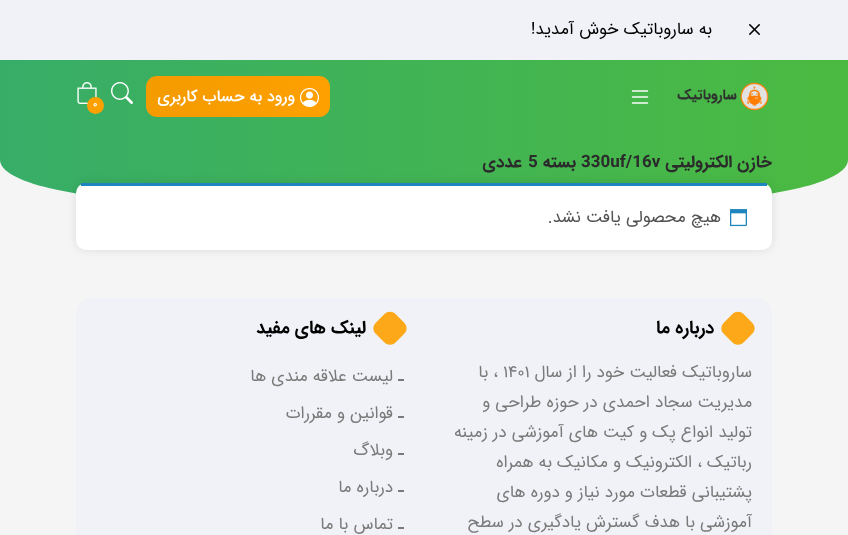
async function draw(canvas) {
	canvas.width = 848;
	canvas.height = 535;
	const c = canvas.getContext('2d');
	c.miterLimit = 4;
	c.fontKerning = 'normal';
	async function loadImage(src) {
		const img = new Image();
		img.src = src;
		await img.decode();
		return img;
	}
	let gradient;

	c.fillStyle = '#f5f5f5';
	c.fillRect(0, 0, 848, 535);
	gradient = c.createLinearGradient(848, 100, 0, 100);
	gradient.addColorStop(0, '#4bba41');
	gradient.addColorStop(1, '#37ad68');
	c.fillStyle = gradient;
	c.beginPath();
	c.moveTo(0, 0);
	c.lineTo(848, 0);
	c.lineTo(848, 160);
	c.bezierCurveTo(848, 182, 772, 200, 678, 200);
	c.lineTo(170, 200);
	c.bezierCurveTo(76, 200, 0, 182, 0, 160);
	c.closePath();
	c.fill();
	c.fillStyle = '#f0f2f7';
	c.fillRect(0, 0, 848, 60);
	c.drawImage(await loadImage('img1.png'), 749, 24, 11, 11);
	c.direction = 'rtl';
	c.font = '17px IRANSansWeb';
	c.fillStyle = '#000';
	c.fillText('به ساروباتیک خوش آمدید!', 712, 34);
	c.drawImage(await loadImage('img2.png'), 677, 82, 92, 29);
	c.drawImage(await loadImage('img3.png'), 631, 90, 18, 14);
	gradient = c.createLinearGradient(146, 97, 330, 97);
	gradient.addColorStop(0, '#f49b00');
	gradient.addColorStop(1, '#fea000');
	c.fillStyle = gradient;
	c.beginPath();
	c.roundRect(146, 76, 184, 41, 11);
	c.fill();
	c.drawImage(await loadImage('img4.png'), 300, 88, 19, 19);
	c.font = '500 16px IRANSansWeb';
	c.fillStyle = '#fff';
	c.fillText('ورود به حساب کاربری', 295, 101);
	c.drawImage(await loadImage('img5.png'), 111, 82, 22, 22);
	c.drawImage(await loadImage('img6.png'), 77, 82, 20, 22);
	c.fillStyle = '#fea000';
	c.beginPath();
	c.arc(95.5, 105.5, 8.5, 0, 2 * Math.PI);
	c.fill();
	c.direction = 'ltr';
	c.font = 'bold 10px IRANSansWeb';
	c.fillStyle = '#fff';
	c.fillText('۰', 93, 107);
	c.direction = 'rtl';
	c.font = 'bold 17px IRANSansWeb';
	c.fillStyle = '#2b2b2b';
	c.fillText('خازن الکترولیتی', 772, 167);
	c.direction = 'ltr';
	c.fillText('330uf/16v', 581, 167);
	c.direction = 'rtl';
	c.fillText('بسته', 576, 167);
	c.direction = 'ltr';
	c.fillText('5', 528, 167);
	c.direction = 'rtl';
	c.fillText('عددی', 522, 167);
	c.fillStyle = '#0000001a';
	c.filter = 'blur(5px)';
	c.beginPath();
	c.roundRect(76, 183, 696, 67, 10);
	c.fill();
	c.filter = 'none';
	c.fillStyle = '#fff';
	c.beginPath();
	c.roundRect(76, 183, 696, 67, 10);
	c.fill();
	c.fillStyle = '#1e85be';
	c.fillRect(81, 183, 686, 3);
	c.drawImage(await loadImage('img7.png'), 730, 209, 17, 18);
	c.font = '17px IRANSansWeb';
	c.fillStyle = '#515151';
	c.fillText('هیچ محصولی یافت نشد.', 721, 222);
	c.fillStyle = '#f0f2f7';
	c.beginPath();
	c.roundRect(76, 298, 696, 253, 16);
	c.fill();
	c.fillStyle = '#fda819';
	c.beginPath();
	c.moveTo(743.5, 314);
	c.lineTo(752, 322.5);
	c.bezierCurveTo(755.5, 326, 755.5, 331, 752, 334);
	c.lineTo(743.5, 342.5);
	c.bezierCurveTo(740.5, 345.5, 735.5, 345.5, 732.5, 342.5);
	c.lineTo(724, 334);
	c.bezierCurveTo(720.5, 331, 720.5, 326, 724, 322.5);
	c.lineTo(732.5, 314);
	c.bezierCurveTo(735.5, 311, 740.5, 311, 743.5, 314);
	c.closePath();
	c.fill();
	c.font = 'bold 18px IRANSansWeb';
	c.fillStyle = '#000';
	c.fillText('درباره ما', 714, 333);
	c.font = '17px IRANSansWeb';
	c.fillStyle = '#7a7a7a';
	c.fillText('ساروباتیک فعالیت خود را از سال', 752, 377);
	c.direction = 'ltr';
	c.fillText('۱۴۰۱', 503, 377);
	c.direction = 'rtl';
	for (const [text, x, y] of [
		['، با', 498, 377],
		['مدیریت سجاد احمدی در حوزه طراحی و', 752, 407],
		['تولید انواع پک و کیت های آموزشی در زمینه', 752, 437],
		['رباتیک ، الکترونیک و مکانیک به همراه', 752, 467],
		['پشتیبانی قطعات مورد نیاز و دوره های', 752, 497],
		['آموزشی با هدف گسترش یادگیری در سطح', 752, 527],
	]) {
		c.fillText(text, x, y);
	}
	c.fillStyle = '#fda819';
	c.beginPath();
	c.moveTo(395.5, 314);
	c.lineTo(404, 322.5);
	c.bezierCurveTo(407.5, 326, 407.5, 331, 404, 334);
	c.lineTo(395.5, 342.5);
	c.bezierCurveTo(392.5, 345.5, 387.5, 345.5, 384.5, 342.5);
	c.lineTo(376, 334);
	c.bezierCurveTo(372.5, 331, 372.5, 326, 376, 322.5);
	c.lineTo(384.5, 314);
	c.bezierCurveTo(387.5, 311, 392.5, 311, 395.5, 314);
	c.closePath();
	c.fill();
	c.font = 'bold 18px IRANSansWeb';
	c.fillStyle = '#000';
	c.fillText('لینک های مفید', 366, 333);
	c.fillStyle = '#7a7a7a';
	c.fillRect(398, 379, 6, 2);
	c.font = '17px IRANSansWeb';
	c.fillText('لیست علاقه مندی ها', 393, 381);
	c.fillRect(398, 416, 6, 2);
	c.fillText('قوانین و مقررات', 393, 418);
	c.fillRect(398, 453, 6, 2);
	c.fillText('وبلاگ', 393, 455);
	c.fillRect(398, 490, 6, 2);
	c.fillText('درباره ما', 393, 492);
	c.fillRect(398, 527, 6, 2);
	c.fillText('تماس با ما', 393, 529);
}

draw(document.querySelector('canvas'));
